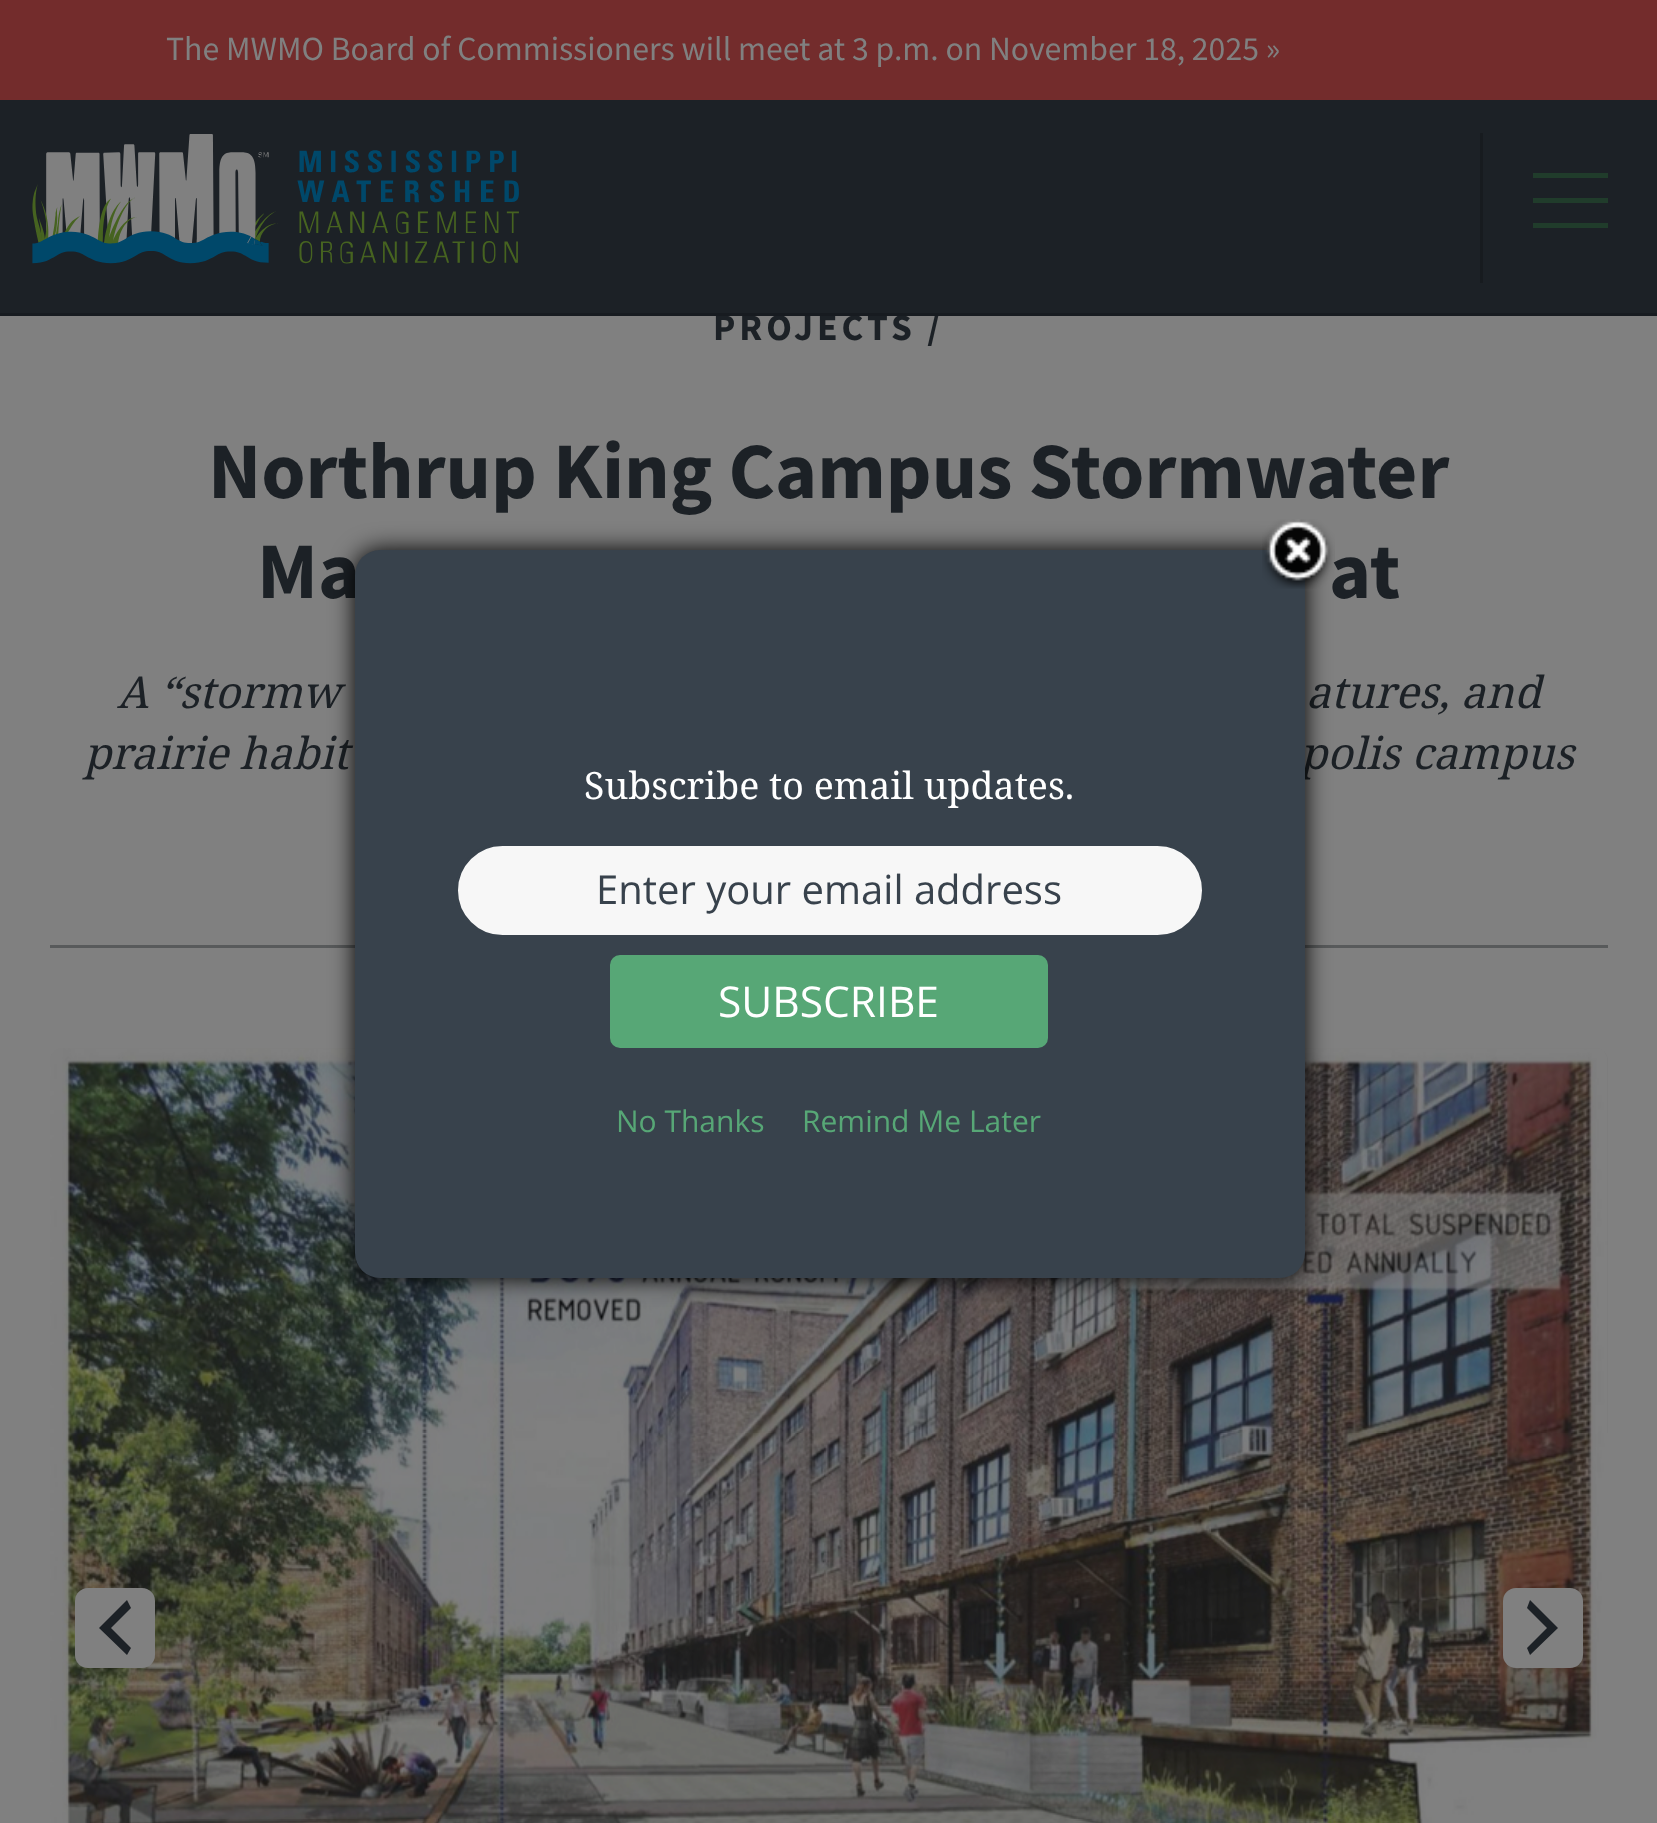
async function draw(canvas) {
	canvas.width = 1657;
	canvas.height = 1823;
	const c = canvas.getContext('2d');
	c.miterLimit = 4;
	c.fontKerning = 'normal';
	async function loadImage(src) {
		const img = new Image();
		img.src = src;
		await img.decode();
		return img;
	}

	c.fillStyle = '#808080';
	c.fillRect(0, 0, 1657, 1823);
	c.fillStyle = '#1c2126';
	c.fillRect(0, 100, 1657, 213);
	c.letterSpacing = '4px';
	c.font = 'bold 37.5px Source Sans Pro';
	c.fillText('PROJECTS /', 713, 340);
	c.fillStyle = '#171b20';
	c.fillRect(0, 313, 1657, 3);
	c.fillStyle = '#732c2c';
	c.fillRect(0, 0, 1657, 100);
	c.letterSpacing = '0px';
	c.font = '33.75px Source Sans Pro';
	c.fillStyle = '#808080';
	c.fillText('The MWMO Board of Commissioners will meet at 3 p.m. on November 18, 2025 »', 166, 60);
	c.drawImage(await loadImage('img1.png'), 32, 134, 487, 130);
	for (const [x, y, w, h, color] of [
		[1480, 133, 3, 150, '#171b1f'],
		[1533, 173, 75, 5, '#203c2b'],
		[1533, 198, 75, 5, '#203c2b'],
		[1533, 223, 75, 5, '#203c2b'],
		[50, 945, 1558, 3, '#585a5b'],
	]) {
		c.fillStyle = color;
		c.fillRect(x, y, w, h);
	}
	c.font = 'bold 80px Source Sans Pro';
	c.fillStyle = '#1c2126';
	for (const [text, x, y] of [
		['Northrup King Campus Stormwater', 208, 498],
		['Ma', 257, 598],
		['at', 1329, 598],
	]) {
		c.fillText(text, x, y);
	}
	c.font = 'italic 44px Noto Serif';
	for (const [text, x, y] of [
		['A “stormw', 117, 708],
		['atures, and', 1306, 708],
		['prairie habit', 84, 769],
		['polis campus', 1300, 769],
	]) {
		c.fillText(text, x, y);
	}
	c.fillStyle = '#7b7b7b';
	c.beginPath();
	c.moveTo(63, 1048);
	c.lineTo(1595, 1048);
	c.bezierCurveTo(1602, 1048, 1608, 1054, 1608, 1061);
	c.lineTo(1608, 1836);
	c.lineTo(50, 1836);
	c.lineTo(50, 1061);
	c.bezierCurveTo(50, 1054, 56, 1048, 63, 1048);
	c.closePath();
	c.fill();
	c.drawImage(await loadImage('img2.png'), 50, 1048, 1558, 775);
	c.fillStyle = '#808080';
	c.beginPath();
	c.roundRect(75, 1588, 80, 80, 13);
	c.fill();
	c.fillStyle = '#1c2126';
	c.beginPath();
	c.moveTo(131, 1608);
	c.lineTo(111, 1628);
	c.lineTo(131, 1648);
	c.lineTo(127, 1655);
	c.lineTo(99, 1628);
	c.lineTo(127, 1600);
	c.closePath();
	c.fill();
	c.fillStyle = '#808080';
	c.beginPath();
	c.roundRect(1503, 1588, 80, 80, 13);
	c.fill();
	c.fillStyle = '#1c2126';
	c.beginPath();
	c.moveTo(1527, 1648);
	c.lineTo(1547, 1628);
	c.lineTo(1527, 1608);
	c.lineTo(1530, 1600);
	c.lineTo(1558, 1628);
	c.lineTo(1530, 1655);
	c.closePath();
	c.fill();
	c.fillStyle = '#000';
	c.filter = 'blur(12.5px)';
	c.beginPath();
	c.roundRect(355, 550, 950, 728, 25);
	c.fill();
	c.filter = 'none';
	c.fillStyle = '#38424c';
	c.beginPath();
	c.roundRect(355, 550, 950, 728, 25);
	c.fill();
	c.drawImage(await loadImage('img3.png'), 1262, 519, 73, 70);
	c.font = '37.5px Noto Serif';
	c.fillStyle = '#fff';
	c.fillText('Subscribe to email updates.', 584, 799);
	c.fillStyle = '#f7f7f7';
	c.beginPath();
	c.roundRect(456.5, 844.5, 747, 92, 46);
	c.fill();
	c.strokeStyle = '#38424c';
	c.lineWidth = 3;
	c.stroke();
	c.font = '40px Open Sans';
	c.fillStyle = '#38424c';
	c.fillText('Enter your email address', 596, 904);
	c.fillStyle = '#57a776';
	c.beginPath();
	c.roundRect(611.5, 956.5, 435, 90, 8.5);
	c.fill();
	c.strokeStyle = '#57a776';
	c.stroke();
	c.font = '42.5px Open Sans';
	c.fillStyle = '#fff';
	c.fillText('SUBSCRIBE', 718, 1017);
	c.font = '30px Open Sans';
	c.fillStyle = '#57a776';
	c.fillText('No Thanks', 616, 1132);
	c.fillText('Remind Me Later', 802, 1132);
}

draw(document.querySelector('canvas'));
